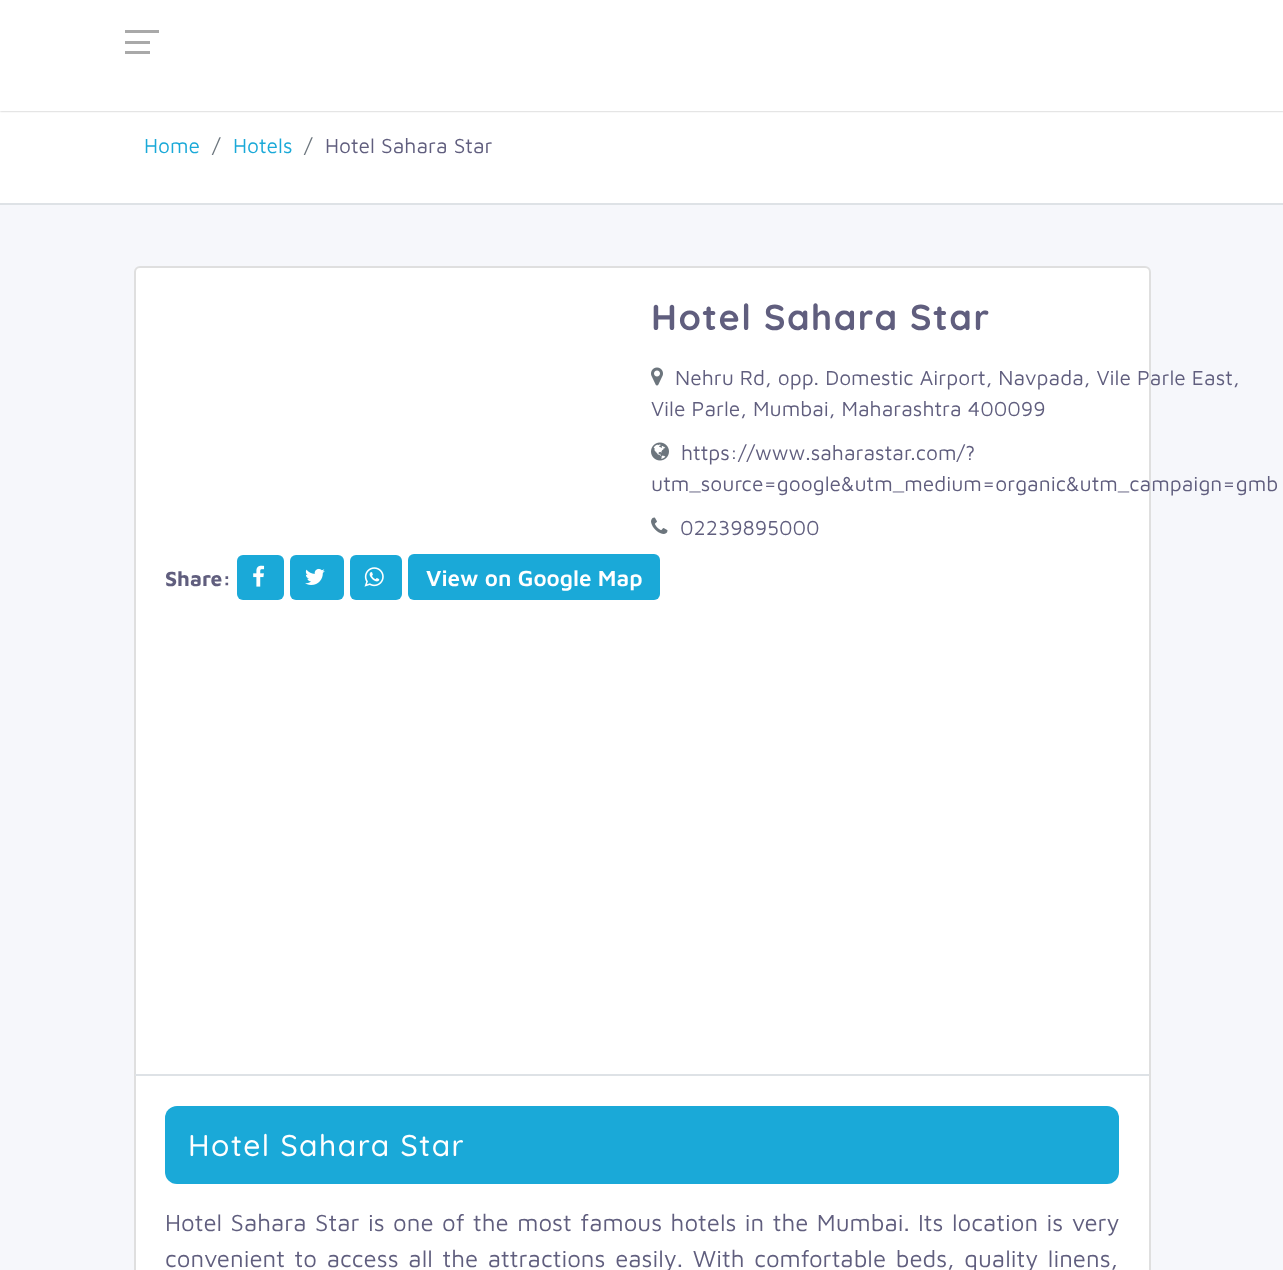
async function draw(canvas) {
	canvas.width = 1283;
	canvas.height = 1270;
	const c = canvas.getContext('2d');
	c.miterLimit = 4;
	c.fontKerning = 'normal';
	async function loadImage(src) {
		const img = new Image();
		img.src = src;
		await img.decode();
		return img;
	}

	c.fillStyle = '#f6f7fb';
	c.fillRect(0, 0, 1283, 1270);
	c.fillStyle = '#fff';
	c.fillRect(0, 111, 1283, 92);
	c.fillStyle = '#0000004d';
	c.filter = 'blur(1px)';
	c.beginPath();
	c.rect(0, 0, 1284, 111);
	c.fill();
	c.filter = 'none';
	for (const [x, y, w, h, color] of [
		[0, 0, 1283, 111, '#fff'],
		[125, 41, 25, 3, '#a9a9a9'],
		[125, 30, 34, 3, '#a9a9a9'],
		[125, 51, 25, 3, '#a9a9a9'],
		[0, 203, 1283, 2, '#dee2e6'],
	]) {
		c.fillStyle = color;
		c.fillRect(x, y, w, h);
	}
	c.font = '21px Maven Pro';
	c.fillStyle = '#1aa9d8';
	c.fillText('Home', 144, 153);
	c.fillStyle = '#6c757d';
	c.fillText('/', 212, 153);
	c.fillStyle = '#1aa9d8';
	c.fillText('Hotels', 233, 153);
	c.fillStyle = '#6c757d';
	c.fillText('/', 304, 153);
	c.fillStyle = '#605e7e';
	c.fillText('Hotel Sahara Star', 325, 153);
	c.fillStyle = '#fff';
	c.beginPath();
	c.roundRect(135, 267, 1015, 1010, 5);
	c.fill();
	c.strokeStyle = '#dfdfdf';
	c.lineWidth = 2;
	c.stroke();
	c.letterSpacing = '1.5px';
	c.font = 'bold 36px Quicksand';
	c.fillStyle = '#605e7e';
	c.fillText('Hotel Sahara Star', 651, 330);
	c.drawImage(await loadImage('img1.png'), 651, 367, 12, 19);
	c.letterSpacing = '0px';
	c.font = '21px Maven Pro';
	c.fillText('Nehru Rd, opp. Domestic Airport, Navpada, Vile Parle East,', 675, 385);
	c.fillText('Vile Parle, Mumbai, Maharashtra 400099', 651, 416);
	c.drawImage(await loadImage('img2.png'), 651, 442, 18, 19);
	c.fillText('https://www.saharastar.com/?', 681, 460);
	c.fillText('utm_source=google&utm_medium=organic&utm_campaign=gmb', 651, 491);
	c.drawImage(await loadImage('img3.png'), 651, 517, 17, 17);
	c.fillText('02239895000', 680, 535);
	c.font = 'bold 21px Maven Pro';
	c.fillText('Share:', 165, 586);
	c.fillStyle = '#1aa9d8';
	c.beginPath();
	c.roundRect(237, 555, 47, 45, 6);
	c.fill();
	c.drawImage(await loadImage('img4.png'), 253, 565, 12, 22);
	c.beginPath();
	c.roundRect(290, 555, 54, 45, 6);
	c.fill();
	c.drawImage(await loadImage('img5.png'), 305, 568, 20, 17);
	c.beginPath();
	c.roundRect(350, 555, 52, 45, 6);
	c.fill();
	c.drawImage(await loadImage('img6.png'), 364, 567, 20, 20);
	c.beginPath();
	c.roundRect(408, 554, 252, 46, 6);
	c.fill();
	c.font = '600 22.5px Maven Pro';
	c.fillStyle = '#fff';
	c.fillText('View on Google Map', 426, 586);
	c.fillStyle = '#dee2e6';
	c.fillRect(135, 1074, 1014, 2);
	c.fillStyle = '#1aa9d8';
	c.beginPath();
	c.roundRect(165, 1106, 954, 78, 12);
	c.fill();
	c.letterSpacing = '1.5px';
	c.font = '500 30px Quicksand';
	c.fillStyle = '#fff';
	c.fillText('Hotel Sahara Star', 188, 1156);
	c.letterSpacing = '0px';
	c.wordSpacing = '1.5px';
	c.font = '24px Maven Pro';
	c.fillStyle = '#605e7e';
	c.fillText('Hotel Sahara Star is one of the most famous hotels in the Mumbai.', 165, 1231);
	c.fillText('Its location is very', 918, 1231);
	c.wordSpacing = '2.75px';
	c.fillText('convenient to access all the attractions easily. With comfortable beds, quality linens,', 165, 1267);
}

draw(document.querySelector('canvas'));
